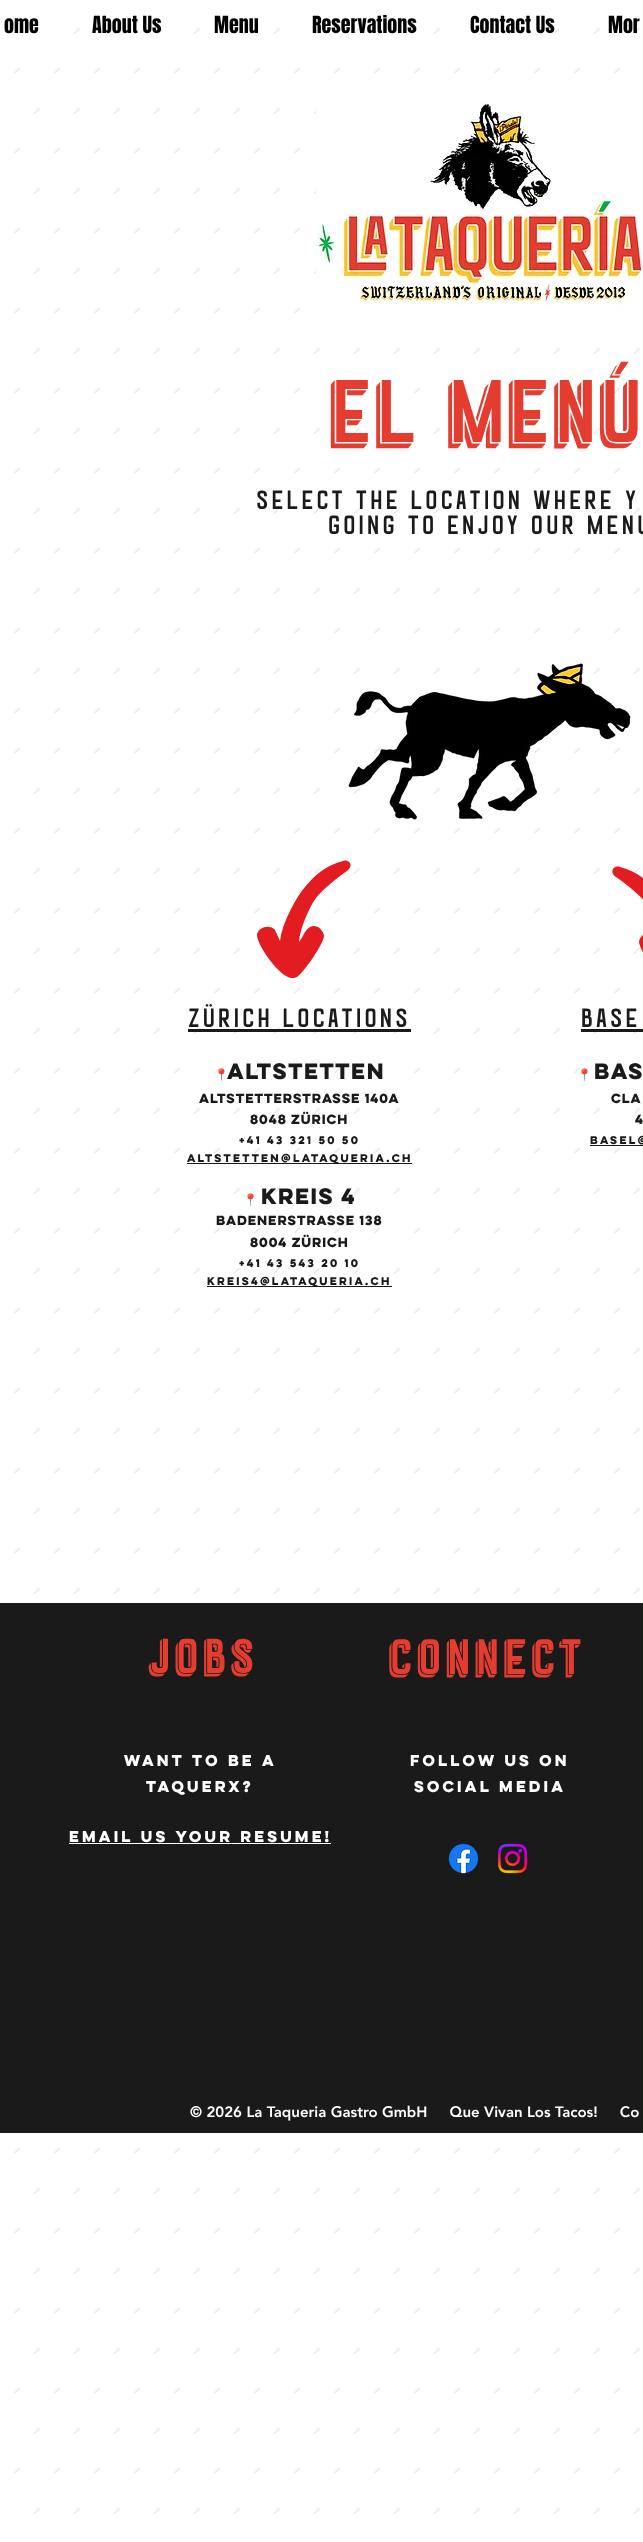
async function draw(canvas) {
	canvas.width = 643;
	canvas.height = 2542;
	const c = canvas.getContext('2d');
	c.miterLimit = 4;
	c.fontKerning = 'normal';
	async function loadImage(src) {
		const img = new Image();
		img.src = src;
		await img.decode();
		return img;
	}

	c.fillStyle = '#fff';
	c.fillRect(0, 0, 643, 2542);
	c.drawImage(await loadImage('img5.png'), 14, 28, 626, 2486);
	c.font = '20px Anton';
	c.fillStyle = '#000';
	for (const [text, x, y] of [
		['ome', 4, 33],
		['About Us', 92, 33],
		['Menu', 214, 33],
		['Reservations', 312, 33],
		['Contact Us', 470, 33],
		['Mor', 608, 33],
	]) {
		c.fillText(text, x, y);
	}
	c.drawImage(await loadImage('img1.png'), 316, 103, 327, 211);
	c.letterSpacing = '5.25px';
	c.font = '107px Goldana';
	c.fillStyle = '#e43d30';
	c.fillText('El Menú', 332, 442);
	c.letterSpacing = '3.2px';
	c.font = '32px "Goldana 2"';
	c.fillStyle = '#1a1a1a';
	c.fillText('select the location where y', 256, 509);
	c.fillText('going to enjoy our menu', 328, 534);
	c.drawImage(await loadImage('img2.png'), 348, 663, 283, 157);
	c.fillStyle = '#e21c21';
	c.beginPath();
	c.moveTo(343, 861);
	c.bezierCurveTo(325, 866, 314, 875, 301, 892);
	c.bezierCurveTo(293, 904, 282, 924, 280, 941);
	c.lineTo(275, 930);
	c.bezierCurveTo(270, 924, 258, 927, 257, 935);
	c.bezierCurveTo(257, 945, 280, 978, 292, 978);
	c.bezierCurveTo(293, 978, 295, 978, 297, 977);
	c.bezierCurveTo(304, 972, 323, 945, 324, 936);
	c.bezierCurveTo(324, 933, 321, 929, 318, 927);
	c.bezierCurveTo(307, 922, 304, 936, 299, 942);
	c.bezierCurveTo(300, 928, 310, 906, 316, 898);
	c.bezierCurveTo(324, 888, 337, 878, 347, 871);
	c.bezierCurveTo(355, 865, 348, 859, 343, 861);
	c.closePath();
	c.fill();
	c.beginPath();
	c.moveTo(620, 867);
	c.bezierCurveTo(638, 872, 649, 881, 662, 898);
	c.bezierCurveTo(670, 910, 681, 930, 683, 947);
	c.lineTo(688, 936);
	c.bezierCurveTo(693, 930, 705, 933, 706, 941);
	c.bezierCurveTo(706, 951, 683, 984, 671, 984);
	c.bezierCurveTo(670, 984, 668, 984, 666, 983);
	c.bezierCurveTo(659, 978, 640, 951, 639, 942);
	c.bezierCurveTo(639, 939, 642, 935, 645, 933);
	c.bezierCurveTo(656, 928, 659, 942, 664, 948);
	c.bezierCurveTo(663, 934, 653, 912, 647, 904);
	c.bezierCurveTo(639, 894, 626, 884, 616, 877);
	c.bezierCurveTo(608, 871, 615, 865, 620, 867);
	c.closePath();
	c.fill();
	c.fillStyle = '#1a1a1a';
	c.fillText('Zürich Locations', 188, 1027);
	c.fillRect(188, 1029, 223, 3);
	c.fillText('Base', 581, 1027);
	c.fillRect(581, 1029, 62, 3);
	c.letterSpacing = '-1.8px';
	c.font = '12px Noto Color Emoji';
	c.fillText('📍', 214, 1079);
	c.letterSpacing = '-3px';
	c.font = 'bold 20px "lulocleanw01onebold"';
	c.fillText('ALtstetten', 227, 1079);
	c.letterSpacing = '-1.8px';
	c.font = 'bold 12px "lulocleanw01onebold"';
	c.fillText('Altstetterstrasse 140a', 199, 1103);
	c.fillText('8048 Zürich', 250, 1124);
	c.letterSpacing = '0px';
	c.font = 'bold 10px "lulocleanw01onebold"';
	c.fillText('+41 43 321 50 50', 239, 1144);
	c.fillRect(187, 1163, 225, 1);
	c.fillText('altstetten@lataqueria.ch', 187, 1162);
	c.letterSpacing = '-1.8px';
	c.font = '12px Noto Color Emoji';
	c.fillText('📍', 243, 1204);
	c.letterSpacing = '-3px';
	c.font = 'bold 20px "lulocleanw01onebold"';
	c.fillText('kreis 4', 261, 1204);
	c.letterSpacing = '-1.8px';
	c.font = 'bold 12px "lulocleanw01onebold"';
	c.fillText('Badenerstrasse 138', 216, 1225);
	c.fillText('8004 Zürich', 250, 1247);
	c.letterSpacing = '0px';
	c.font = 'bold 10px "lulocleanw01onebold"';
	c.fillText('+41 43 543 20 10', 239, 1267);
	c.fillRect(207, 1286, 185, 1);
	c.fillText('kreis4@lataqueria.ch', 207, 1285);
	c.letterSpacing = '-1.8px';
	c.font = '12px Noto Color Emoji';
	c.fillText('📍', 577, 1079);
	c.letterSpacing = '-3px';
	c.font = 'bold 20px "lulocleanw01onebold"';
	c.fillText('Bas', 594, 1079);
	c.letterSpacing = '-1.8px';
	c.font = 'bold 12px "lulocleanw01onebold"';
	c.fillText('Cla', 611, 1103);
	c.fillText('4', 635, 1124);
	c.letterSpacing = '0px';
	c.font = 'bold 10px "lulocleanw01onebold"';
	c.fillText('basel@', 590, 1144);
	c.fillRect(590, 1145, 53, 1);
	c.fillRect(0, 1603, 643, 530);
	c.letterSpacing = '6px';
	c.font = '59px Goldana';
	c.fillStyle = '#e43d30';
	c.fillText('JOBS', 150, 1673);
	c.font = '60px Goldana';
	c.fillText('Connect', 390, 1674);
	c.letterSpacing = '0px';
	c.font = 'bold 14px "lulocleanw01onebold"';
	c.fillStyle = '#fff';
	for (const [text, x, y] of [
		['WANT TO be a', 124, 1766],
		['taquerx?', 146, 1792],
		['EMAIL Us your resume!', 69, 1842],
	]) {
		c.fillText(text, x, y);
	}
	c.fillRect(69, 1843, 262, 1);
	c.fillText('Follow us on', 410, 1766);
	c.fillText('social media', 414, 1792);
	c.drawImage(await loadImage('img3.png'), 448, 1843, 31, 31);
	c.drawImage(await loadImage('img4.png'), 497, 1843, 31, 31);
	c.font = '900 15px "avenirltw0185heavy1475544"';
	c.fillText('© 2026 La Taqueria Gastro GmbH     Que Vivan Los Tacos!     Co', 190, 2117);
}

draw(document.querySelector('canvas'));
